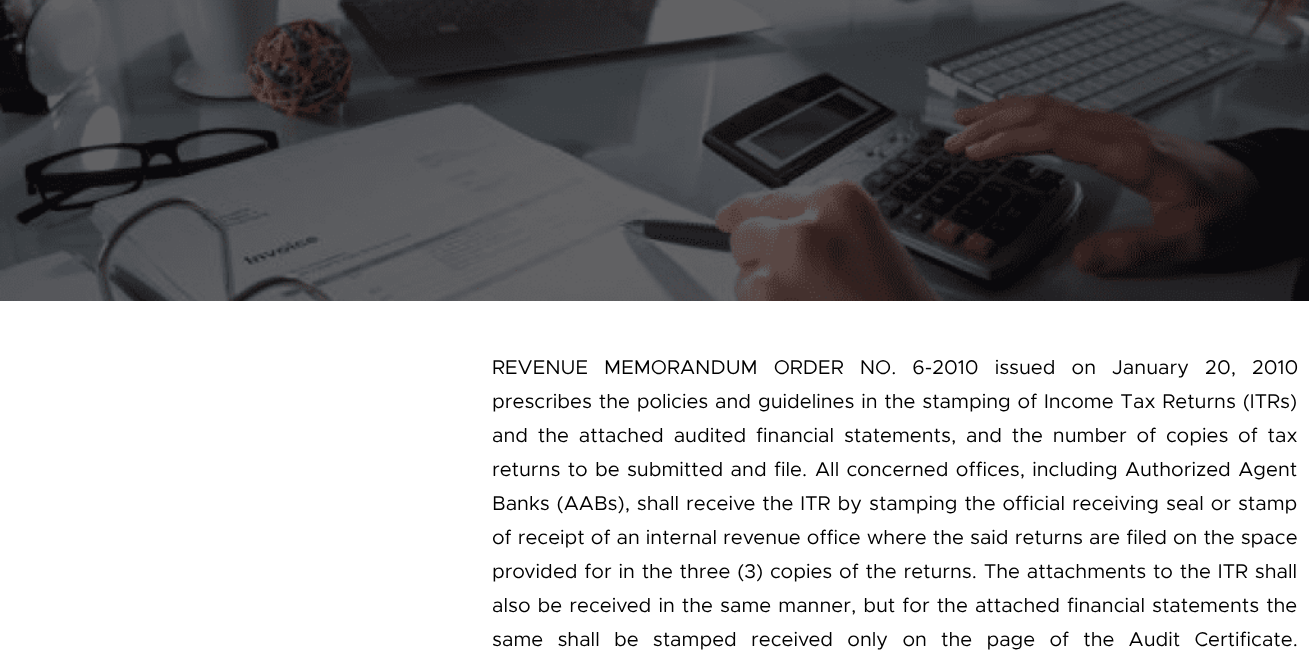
async function draw(canvas) {
	canvas.width = 1309;
	canvas.height = 650;
	const c = canvas.getContext('2d');
	c.miterLimit = 4;
	c.fontKerning = 'normal';
	async function loadImage(src) {
		const img = new Image();
		img.src = src;
		await img.decode();
		return img;
	}

	c.fillStyle = '#fff';
	c.fillRect(0, 0, 1309, 650);
	c.drawImage(await loadImage('img1.png'), 0, 0, 1309, 301);
	c.wordSpacing = '10.25px';
	c.font = '20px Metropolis';
	c.fillStyle = '#000';
	c.fillText('REVENUE MEMORANDUM ORDER NO. 6-2010 issued on January 20, 2010', 492, 374);
	c.wordSpacing = '1px';
	c.fillText('prescribes the policies and guidelines in the stamping of Income Tax Returns (ITRs)', 492, 408);
	c.wordSpacing = '4px';
	c.fillText('and the attached audited financial statements, and the number of copies of tax', 492, 442);
	c.wordSpacing = '1.5px';
	c.fillText('returns to be submitted and file.', 492, 476);
	c.fillText('All concerned offices, including Authorized Agent', 815, 476);
	c.wordSpacing = '1.1px';
	c.fillText('Banks (AABs), shall receive the ITR by stamping the official receiving seal or stamp', 492, 510);
	c.wordSpacing = '0.25px';
	c.fillText('of receipt of an internal revenue office where the said returns are filed on the space', 492, 544);
	c.wordSpacing = '1px';
	c.fillText('provided for in the three (3) copies of the returns. The attachments to the ITR shall', 492, 578);
	c.wordSpacing = '1.25px';
	c.fillText('also be received in the same manner, but for the attached financial statements the', 492, 612);
	c.wordSpacing = '8.4px';
	c.fillText('same shall be stamped received only on the page of the Audit Certificate.', 492, 646);
}

draw(document.querySelector('canvas'));
